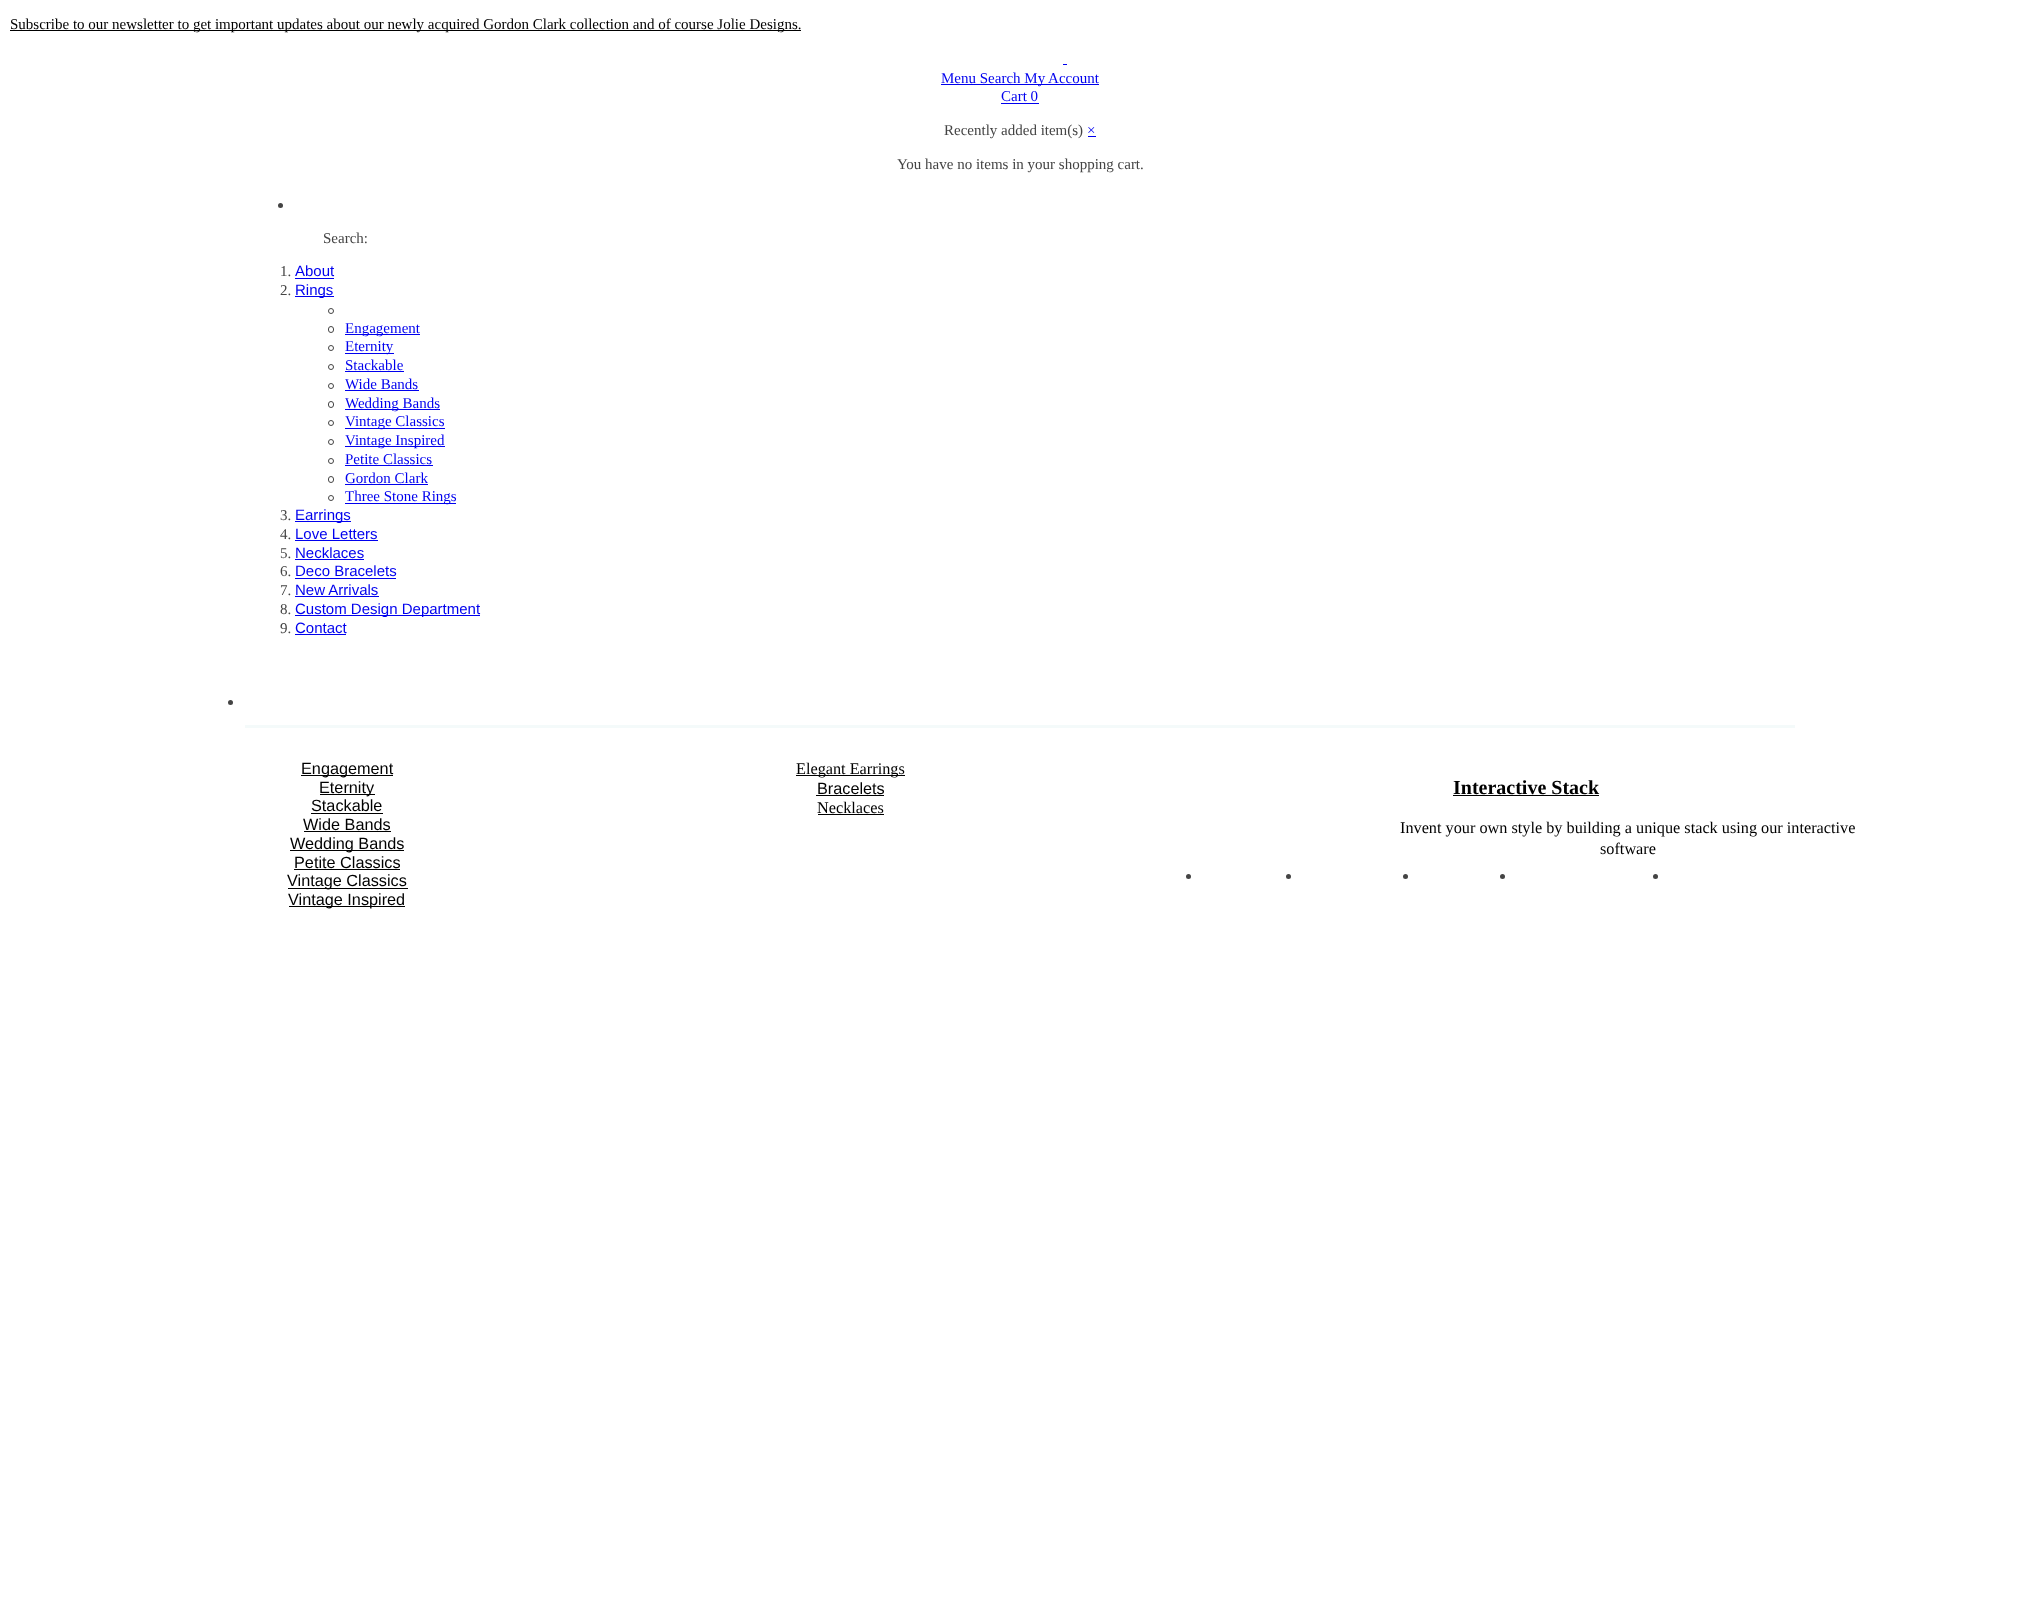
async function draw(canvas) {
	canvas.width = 2040;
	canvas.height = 1601;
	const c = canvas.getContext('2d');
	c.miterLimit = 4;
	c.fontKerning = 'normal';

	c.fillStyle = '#fff';
	c.fillRect(0, 0, 2040, 1601);
	c.fillStyle = '#000';
	c.fillRect(10, 30, 791, 1);
	c.font = '15px Liberation Serif';
	c.fillText('Subscribe to our newsletter to get important updates about our newly acquired Gordon Clark collection and of course Jolie Designs.', 10, 29);
	c.fillStyle = '#00e';
	c.fillRect(1063, 64, 4, 1);
	c.fillRect(941, 84, 158, 1);
	c.fillText('Menu Search My Account', 941, 83);
	c.fillText('Cart 0', 1001, 101);
	c.fillRect(1001, 103, 38, 1);
	c.fillStyle = '#444';
	c.fillText('Recently added item(s)', 944, 135);
	c.fillStyle = '#00e';
	c.fillText('×', 1087, 135);
	c.fillRect(1088, 136, 8, 1);
	c.fillStyle = '#444';
	c.fillText('You have no items in your shopping cart.', 897, 169);
	c.beginPath();
	c.arc(280.5, 205.5, 2.5, 0, 2 * Math.PI);
	c.fill();
	c.fillText('Search:', 323, 243);
	c.fillText('1.', 280, 276);
	c.font = '15px Liberation Sans';
	c.fillStyle = '#00e';
	c.fillText('About', 295, 276);
	c.fillRect(295, 278, 39, 1);
	c.font = '15px Liberation Serif';
	c.fillStyle = '#444';
	c.fillText('2.', 280, 295);
	c.fillStyle = '#00e';
	c.fillRect(295, 296, 39, 1);
	c.font = '15px Liberation Sans';
	c.fillText('Rings', 295, 295);
	c.beginPath();
	c.arc(331, 311, 2.5, 0, 2 * Math.PI);
	c.strokeStyle = '#444';
	c.stroke();
	c.beginPath();
	c.roundRect(328.5, 326.5, 5, 6, 2.5);
	c.stroke();
	c.fillRect(345, 334, 75, 1);
	c.font = '15px Liberation Serif';
	c.fillText('Engagement', 345, 333);
	c.beginPath();
	c.arc(331, 348, 2.5, 0, 2 * Math.PI);
	c.stroke();
	c.fillRect(345, 353, 49, 1);
	c.fillText('Eternity', 345, 351);
	c.beginPath();
	c.arc(331, 367, 2.5, 0, 2 * Math.PI);
	c.stroke();
	c.fillText('Stackable', 345, 370);
	c.fillRect(345, 371, 59, 1);
	c.beginPath();
	c.arc(331, 386, 2.5, 0, 2 * Math.PI);
	c.stroke();
	c.fillText('Wide Bands', 345, 389);
	c.fillRect(345, 390, 74, 1);
	c.beginPath();
	c.roundRect(328.5, 401.5, 5, 6, 2.5);
	c.stroke();
	c.fillRect(345, 409, 95, 1);
	c.fillText('Wedding Bands', 345, 408);
	c.beginPath();
	c.arc(331, 423, 2.5, 0, 2 * Math.PI);
	c.stroke();
	c.fillRect(345, 428, 100, 1);
	c.fillText('Vintage Classics', 345, 426);
	c.beginPath();
	c.arc(331, 442, 2.5, 0, 2 * Math.PI);
	c.stroke();
	c.fillRect(345, 446, 100, 1);
	c.fillText('Vintage Inspired', 345, 445);
	c.beginPath();
	c.arc(331, 461, 2.5, 0, 2 * Math.PI);
	c.stroke();
	c.fillText('Petite Classics', 345, 464);
	c.fillRect(345, 465, 88, 1);
	c.beginPath();
	c.roundRect(328.5, 476.5, 5, 6, 2.5);
	c.stroke();
	c.fillText('Gordon Clark', 345, 483);
	c.fillRect(345, 484, 83, 1);
	c.beginPath();
	c.arc(331, 498, 2.5, 0, 2 * Math.PI);
	c.stroke();
	c.fillRect(345, 503, 111, 1);
	c.fillText('Three Stone Rings', 345, 501);
	c.fillStyle = '#444';
	c.fillText('3.', 280, 520);
	c.fillStyle = '#00e';
	c.fillRect(295, 521, 56, 1);
	c.font = '15px Liberation Sans';
	c.fillText('Earrings', 295, 520);
	c.font = '15px Liberation Serif';
	c.fillStyle = '#444';
	c.fillText('4.', 280, 539);
	c.font = '15px Liberation Sans';
	c.fillStyle = '#00e';
	c.fillText('Love Letters', 295, 539);
	c.fillRect(295, 540, 83, 1);
	c.font = '15px Liberation Serif';
	c.fillStyle = '#444';
	c.fillText('5.', 280, 558);
	c.font = '15px Liberation Sans';
	c.fillStyle = '#00e';
	c.fillText('Necklaces', 295, 558);
	c.fillRect(295, 559, 69, 1);
	c.font = '15px Liberation Serif';
	c.fillStyle = '#444';
	c.fillText('6.', 280, 576);
	c.font = '15px Liberation Sans';
	c.fillStyle = '#00e';
	c.fillText('Deco Bracelets', 295, 576);
	c.fillRect(295, 578, 101, 1);
	c.font = '15px Liberation Serif';
	c.fillStyle = '#444';
	c.fillText('7.', 280, 595);
	c.font = '15px Liberation Sans';
	c.fillStyle = '#00e';
	c.fillText('New Arrivals', 295, 595);
	c.fillRect(295, 596, 84, 1);
	c.font = '15px Liberation Serif';
	c.fillStyle = '#444';
	c.fillText('8.', 280, 614);
	c.fillStyle = '#00e';
	c.fillRect(295, 615, 185, 1);
	c.font = '15px Liberation Sans';
	c.fillText('Custom Design Department', 295, 614);
	c.font = '15px Liberation Serif';
	c.fillStyle = '#444';
	c.fillText('9.', 280, 633);
	c.font = '15px Liberation Sans';
	c.fillStyle = '#00e';
	c.fillText('Contact', 295, 633);
	c.fillRect(295, 634, 51, 1);
	c.fillStyle = '#444';
	c.beginPath();
	c.arc(230.5, 702.5, 2.5, 0, 2 * Math.PI);
	c.fill();
	c.fillStyle = '#f4fafa';
	c.fillRect(245, 725, 1550, 3);
	c.fillStyle = '#000';
	c.fillRect(301, 775, 92, 1);
	c.font = '16.25px Liberation Sans';
	c.fillText('Engagement', 301, 774);
	c.fillRect(320, 794, 55, 1);
	c.fillText('Eternity', 319, 793);
	c.fillText('Stackable', 311, 811);
	c.fillRect(311, 813, 72, 1);
	c.fillText('Wide Bands', 303, 830);
	c.fillRect(304, 831, 87, 1);
	c.fillRect(290, 850, 114, 1);
	c.fillText('Wedding Bands', 290, 849);
	c.fillText('Petite Classics', 294, 868);
	c.fillRect(294, 869, 106, 1);
	c.fillRect(288, 888, 120, 1);
	c.fillText('Vintage Classics', 287, 886);
	c.fillRect(289, 906, 116, 1);
	c.fillText('Vintage Inspired', 288, 905);
	c.fillRect(796, 775, 109, 1);
	c.font = '16.25px Liberation Serif';
	c.fillText('Elegant Earrings', 796, 774);
	c.font = '16.25px Liberation Sans';
	c.fillText('Bracelets', 817, 794);
	c.fillRect(816, 795, 68, 1);
	c.font = '16.25px Liberation Serif';
	c.fillText('Necklaces', 817, 813);
	c.fillRect(818, 814, 66, 1);
	c.font = 'bold 20px Liberation Serif';
	c.fillText('Interactive Stack', 1453, 794);
	c.fillRect(1453, 795, 146, 1);
	c.font = '16.25px Liberation Serif';
	c.fillText('Invent your own style by building a unique stack using our interactive', 1400, 833);
	c.fillText('software', 1600, 854);
	c.fillStyle = '#444';
	c.beginPath();
	c.arc(1188.5, 876.5, 2.5, 0, 2 * Math.PI);
	c.fill();
	c.beginPath();
	c.arc(1288.5, 876.5, 2.5, 0, 2 * Math.PI);
	c.fill();
	c.beginPath();
	c.arc(1405.5, 876.5, 2.5, 0, 2 * Math.PI);
	c.fill();
	c.beginPath();
	c.arc(1502.5, 876.5, 2.5, 0, 2 * Math.PI);
	c.fill();
	c.beginPath();
	c.arc(1655.5, 876.5, 2.5, 0, 2 * Math.PI);
	c.fill();
}

draw(document.querySelector('canvas'));
